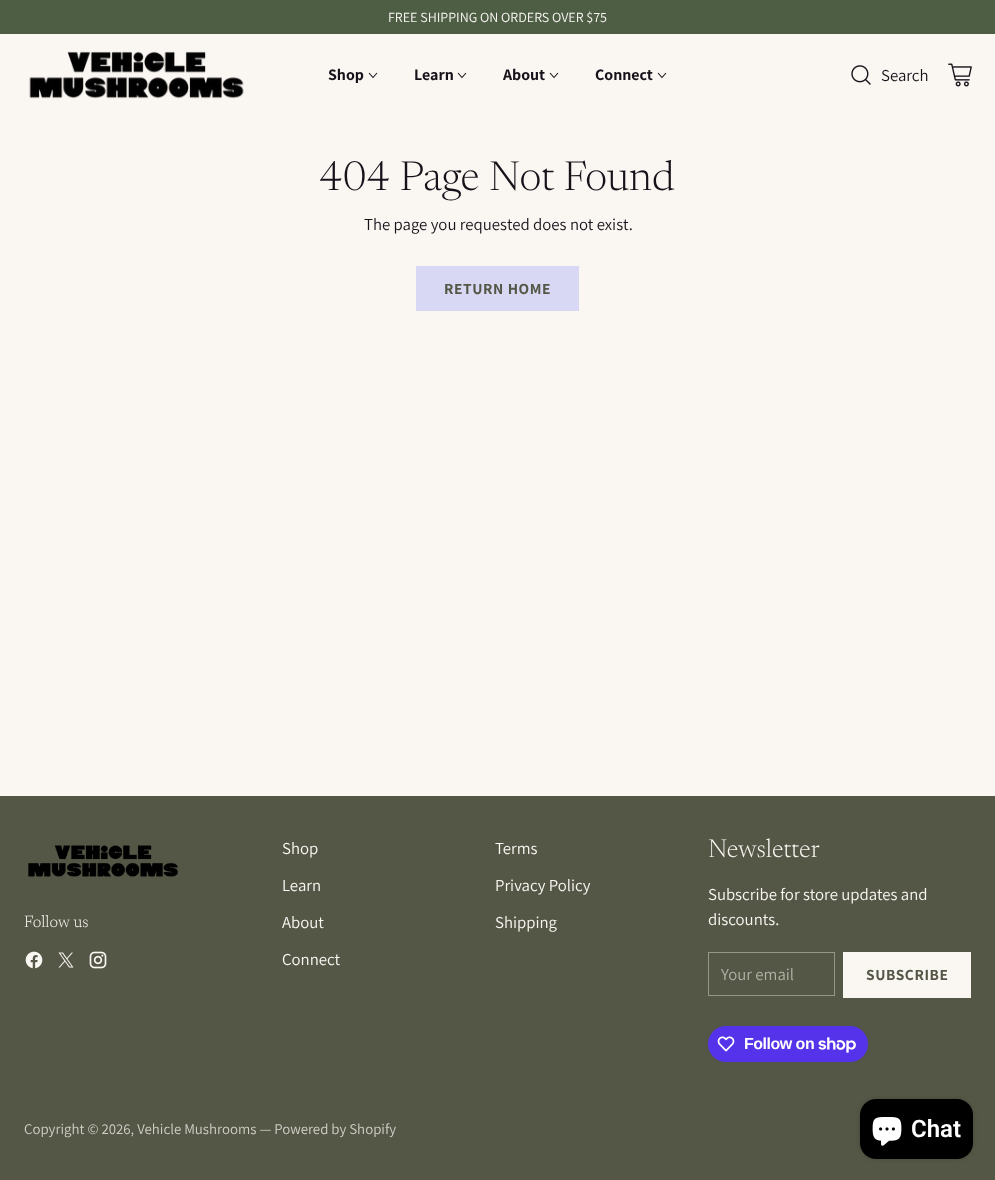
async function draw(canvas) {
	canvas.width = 995;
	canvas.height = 1180;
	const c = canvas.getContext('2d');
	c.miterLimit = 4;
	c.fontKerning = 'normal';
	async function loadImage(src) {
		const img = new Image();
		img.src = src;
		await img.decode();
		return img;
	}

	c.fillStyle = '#faf6f2';
	c.fillRect(0, 0, 995, 1180);
	c.fillStyle = '#4e5e45';
	c.fillRect(0, 0, 995, 34);
	c.font = '14px Assistant';
	c.fillStyle = '#faf6f2';
	c.fillText('FREE SHIPPING ON ORDERS OVER $75', 388, 22);
	c.drawImage(await loadImage('img1.png'), 29, 51, 215, 48);
	c.font = 'bold 16px Assistant';
	c.fillStyle = '#171219';
	c.fillText('Shop', 328, 80);
	c.beginPath();
	c.moveTo(369, 73);
	c.lineTo(373, 77.5);
	c.lineTo(377, 73);
	c.strokeStyle = '#171219';
	c.lineWidth = 1.1;
	c.stroke();
	c.fillText('Learn', 414, 80);
	c.beginPath();
	c.moveTo(458, 73);
	c.lineTo(462, 77.5);
	c.lineTo(466, 73);
	c.stroke();
	c.fillText('About', 503, 80);
	c.beginPath();
	c.moveTo(550, 73);
	c.lineTo(554, 77.5);
	c.lineTo(558, 73);
	c.stroke();
	c.fillText('Connect', 595, 80);
	c.beginPath();
	c.moveTo(658, 73);
	c.lineTo(662, 77.5);
	c.lineTo(666, 73);
	c.stroke();
	c.drawImage(await loadImage('img2.png'), 851, 65, 20, 20);
	c.font = '16.75px Assistant';
	c.fillText('Search', 881, 81);
	c.drawImage(await loadImage('img3.png'), 948, 63, 24, 24);
	c.font = '300 41.5px Newsreader';
	c.fillText('404 Page Not Found', 319, 190);
	c.font = '16.75px Assistant';
	c.fillText('The page you requested does not exist.', 364, 230);
	c.fillStyle = '#d8d8f5';
	c.fillRect(416, 266, 163, 45);
	c.letterSpacing = '0.6px';
	c.font = 'bold 15.5px Assistant';
	c.fillStyle = '#545746';
	c.fillText('RETURN HOME', 444, 294);
	c.fillRect(0, 796, 995, 384);
	c.drawImage(await loadImage('img4.png'), 28, 845, 150, 32);
	c.letterSpacing = '0px';
	c.font = '300 16.75px "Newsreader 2"';
	c.fillStyle = '#faf6f2';
	c.fillText('Follow us', 24, 927);
	c.drawImage(await loadImage('img5.png'), 25, 951, 18, 18);
	c.drawImage(await loadImage('img6.png'), 58, 952, 16, 16);
	c.drawImage(await loadImage('img7.png'), 89, 951, 18, 18);
	c.font = '16.75px Assistant';
	for (const [text, x, y] of [
		['Shop', 282, 854],
		['Learn', 282, 891],
		['About', 282, 928],
		['Connect', 282, 965],
		['Terms', 495, 854],
		['Privacy Policy', 495, 891],
		['Shipping', 495, 928],
	]) {
		c.fillText(text, x, y);
	}
	c.font = '300 26px "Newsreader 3"';
	c.fillText('Newsletter', 708, 857);
	c.font = '16.75px Assistant';
	c.fillText('Subscribe for store updates and', 708, 900);
	c.fillText('discounts.', 708, 925);
	c.strokeStyle = '#96978b';
	c.lineWidth = 1;
	c.strokeRect(708.5, 952.5, 126, 43);
	c.fillStyle = '#b3b1a8';
	c.fillText('Your email', 721, 980);
	c.fillStyle = '#faf6f2';
	c.fillRect(843, 952, 128, 46);
	c.letterSpacing = '0.6px';
	c.font = 'bold 15.5px Assistant';
	c.fillStyle = '#545746';
	c.fillText('SUBSCRIBE', 866, 980);
	c.fillStyle = '#5433eb';
	c.beginPath();
	c.roundRect(708, 1026, 160, 36, 18);
	c.fill();
	c.drawImage(await loadImage('img8.png'), 717, 1036, 18, 16);
	c.letterSpacing = '-0.5px';
	c.font = 'bold 16px Liberation Sans';
	c.fillStyle = '#fff';
	c.fillText('Follow on', 744, 1049);
	c.drawImage(await loadImage('img9.png'), 818, 1037, 38, 16);
	c.letterSpacing = '0px';
	c.font = '14.85px Assistant';
	c.fillStyle = '#d1cec7';
	c.fillText('Copyright © 2026, Vehicle Mushrooms — Powered by Shopify', 24, 1134);
	c.fillStyle = '#00000026';
	c.filter = 'blur(2.5px)';
	c.beginPath();
	c.roundRect(860, 1099, 113, 60, 16);
	c.fill();
	c.filter = 'none';
	c.fillStyle = '#000';
	c.beginPath();
	c.roundRect(860, 1099, 113, 60, 16);
	c.fill();
	c.drawImage(await loadImage('img10.png'), 872, 1117, 30, 29);
	c.font = '600 24px Roboto';
	c.fillStyle = '#fff';
	c.fillText('Chat', 911, 1137);
}

draw(document.querySelector('canvas'));
